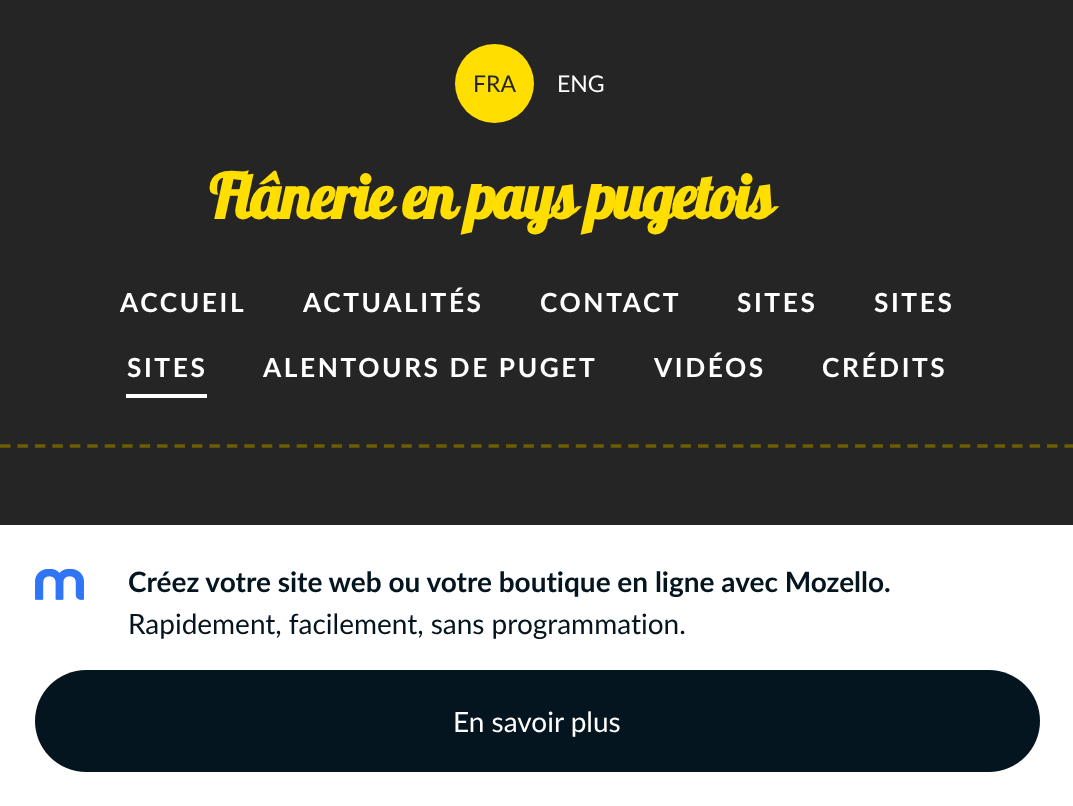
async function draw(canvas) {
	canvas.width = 1073;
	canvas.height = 806;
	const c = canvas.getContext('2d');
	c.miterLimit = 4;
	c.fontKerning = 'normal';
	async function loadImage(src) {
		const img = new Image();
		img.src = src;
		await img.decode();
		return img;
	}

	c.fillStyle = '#252525';
	c.fillRect(0, 0, 1073, 806);
	c.beginPath();
	c.moveTo(0, 446);
	c.lineTo(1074.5, 446);
	c.strokeStyle = '#6b5d00';
	c.lineWidth = 3.5;
	c.setLineDash([10.5, 6.95]);
	c.stroke();
	c.fillStyle = '#ffde00';
	c.beginPath();
	c.arc(494.5, 83.5, 39.5, 0, 2 * Math.PI);
	c.fill();
	c.font = '23px Lato';
	c.fillStyle = '#252525';
	c.fillText('FRA', 473, 92);
	c.fillStyle = '#fff';
	c.fillText('ENG', 557, 92);
	c.letterSpacing = '-1.75px';
	c.font = 'bold 62px Lobster';
	c.fillStyle = '#ffde00';
	c.fillText('Flânerie en pays pugetois', 209, 219);
	c.letterSpacing = '2.6px';
	c.font = 'bold 26.25px Lato';
	c.fillStyle = '#fff';
	for (const [text, x, y] of [
		['ACCUEIL', 120, 312],
		['ACTUALITÉS', 303, 312],
		['CONTACT', 540, 312],
		['SITES', 737, 312],
		['SITES', 874, 312],
	]) {
		c.fillText(text, x, y);
	}
	c.fillRect(126, 394, 81, 4);
	for (const [text, x, y] of [
		['SITES', 127, 377],
		['ALENTOURS DE PUGET', 263, 377],
		['VIDÉOS', 654, 377],
		['CRÉDITS', 822, 377],
	]) {
		c.fillText(text, x, y);
	}
	c.fillRect(0, 525, 1073, 281);
	c.drawImage(await loadImage('img1.png'), 35, 569, 49, 31);
	c.letterSpacing = '0px';
	c.font = 'bold 28px Lato';
	c.fillStyle = '#04151f';
	c.fillText('Créez votre site web ou votre boutique en ligne avec Mozello.', 128, 592);
	c.font = '28px Lato';
	c.fillText('Rapidement, facilement, sans programmation.', 128, 634);
	c.beginPath();
	c.roundRect(35, 670, 1005, 102, 51);
	c.fill();
	c.fillStyle = '#fff';
	c.fillText('En savoir plus', 453, 732);
}

draw(document.querySelector('canvas'));
